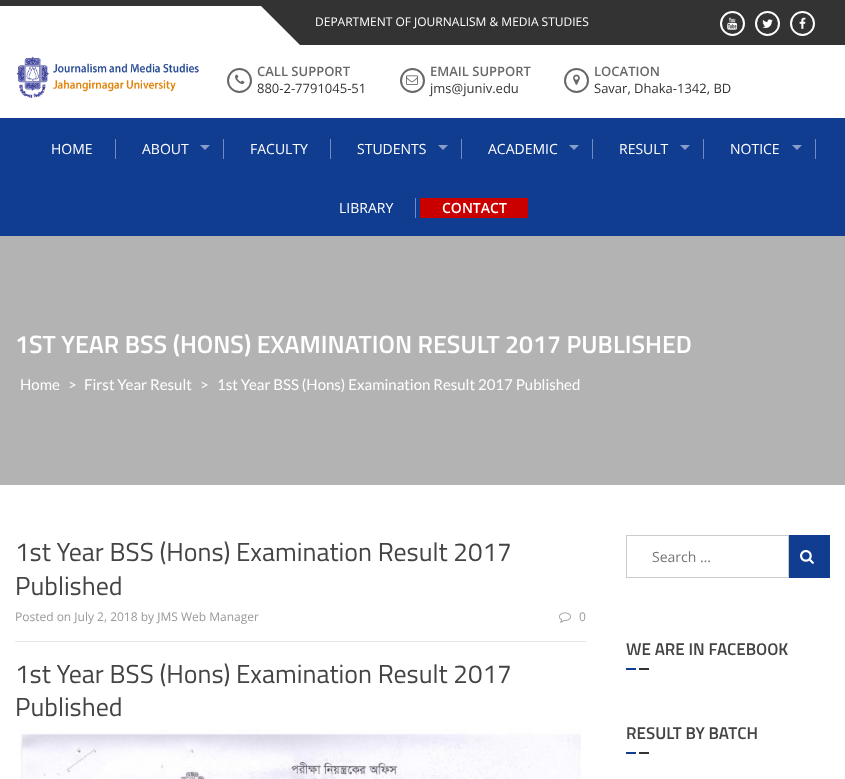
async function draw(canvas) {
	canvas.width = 845;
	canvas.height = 779;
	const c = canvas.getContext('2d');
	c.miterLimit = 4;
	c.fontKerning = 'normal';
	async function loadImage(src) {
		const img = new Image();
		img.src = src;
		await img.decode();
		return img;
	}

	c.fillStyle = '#fff';
	c.fillRect(0, 0, 845, 779);
	c.fillStyle = '#333';
	c.fillRect(0, 0, 845, 6);
	c.fillRect(300, 6, 545, 39);
	c.beginPath();
	c.moveTo(261, 6);
	c.lineTo(300, 6);
	c.lineTo(300, 45);
	c.closePath();
	c.fill();
	c.font = '12px Open Sans';
	c.fillStyle = '#fff';
	c.fillText('DEPARTMENT OF JOURNALISM & MEDIA STUDIES', 315, 26);
	c.beginPath();
	c.arc(732.5, 23.5, 11.5, 0, 2 * Math.PI);
	c.strokeStyle = '#fff';
	c.lineWidth = 2;
	c.stroke();
	c.drawImage(await loadImage('img1.png'), 727, 17, 11, 13);
	c.beginPath();
	c.arc(767.5, 23.5, 11.5, 0, 2 * Math.PI);
	c.stroke();
	c.drawImage(await loadImage('img2.png'), 762, 19, 11, 9);
	c.beginPath();
	c.arc(802.5, 23.5, 11.5, 0, 2 * Math.PI);
	c.stroke();
	c.drawImage(await loadImage('img3.png'), 799, 17, 7, 12);
	c.drawImage(await loadImage('img4.png'), 16, 56, 183, 42);
	c.beginPath();
	c.arc(239.5, 80.5, 11.5, 0, 2 * Math.PI);
	c.strokeStyle = '#686868';
	c.stroke();
	c.drawImage(await loadImage('img5.png'), 235, 74, 10, 10);
	c.font = '600 13px Open Sans';
	c.fillStyle = '#686868';
	c.fillText('CALL SUPPORT', 257, 76);
	c.font = '13px Open Sans';
	c.fillStyle = '#333';
	c.fillText('880-2-7791045-51', 257, 93);
	c.beginPath();
	c.arc(412.5, 80.5, 11.5, 0, 2 * Math.PI);
	c.stroke();
	c.drawImage(await loadImage('img6.png'), 406, 75, 12, 10);
	c.font = '600 13px Open Sans';
	c.fillStyle = '#686868';
	c.fillText('EMAIL SUPPORT', 430, 76);
	c.font = '13px Open Sans';
	c.fillStyle = '#333';
	c.fillText('jms@juniv.edu', 430, 93);
	c.beginPath();
	c.arc(576.5, 80.5, 11.5, 0, 2 * Math.PI);
	c.stroke();
	c.drawImage(await loadImage('img7.png'), 573, 74, 7, 11);
	c.font = '600 13px Open Sans';
	c.fillStyle = '#686868';
	c.fillText('LOCATION', 594, 76);
	c.font = '13px Open Sans';
	c.fillStyle = '#333';
	c.fillText('Savar, Dhaka-1342, BD', 594, 93);
	c.fillStyle = '#113d91';
	c.fillRect(0, 118, 845, 118);
	c.fillStyle = '#708bbd';
	c.fillRect(115, 139, 1, 20);
	c.font = '14px Open Sans';
	c.fillStyle = '#fff';
	c.fillText('HOME', 51, 154);
	c.fillStyle = '#708bbd';
	c.fillRect(223, 139, 1, 20);
	c.fillStyle = '#fff';
	c.fillText('ABOUT', 142, 154);
	c.fillStyle = '#889ec8';
	c.beginPath();
	c.moveTo(200, 145);
	c.lineTo(210, 145);
	c.lineTo(205, 150);
	c.closePath();
	c.fill();
	c.fillStyle = '#708bbd';
	c.fillRect(330, 139, 1, 20);
	c.fillStyle = '#fff';
	c.fillText('FACULTY', 250, 154);
	c.fillStyle = '#708bbd';
	c.fillRect(461, 139, 1, 20);
	c.fillStyle = '#fff';
	c.fillText('STUDENTS', 357, 154);
	c.fillStyle = '#889ec8';
	c.beginPath();
	c.moveTo(438, 145);
	c.lineTo(448, 145);
	c.lineTo(443, 150);
	c.closePath();
	c.fill();
	c.fillStyle = '#708bbd';
	c.fillRect(592, 139, 1, 20);
	c.fillStyle = '#fff';
	c.fillText('ACADEMIC', 488, 154);
	c.fillStyle = '#889ec8';
	c.beginPath();
	c.moveTo(569, 145);
	c.lineTo(579, 145);
	c.lineTo(574, 150);
	c.closePath();
	c.fill();
	c.fillStyle = '#708bbd';
	c.fillRect(703, 139, 1, 20);
	c.fillStyle = '#fff';
	c.fillText('RESULT', 619, 154);
	c.fillStyle = '#889ec8';
	c.beginPath();
	c.moveTo(680, 145);
	c.lineTo(690, 145);
	c.lineTo(685, 150);
	c.closePath();
	c.fill();
	c.fillStyle = '#708bbd';
	c.fillRect(815, 139, 1, 20);
	c.fillStyle = '#fff';
	c.fillText('NOTICE', 730, 154);
	c.fillStyle = '#889ec8';
	c.beginPath();
	c.moveTo(792, 145);
	c.lineTo(802, 145);
	c.lineTo(797, 150);
	c.closePath();
	c.fill();
	c.fillStyle = '#708bbd';
	c.fillRect(415, 198, 1, 20);
	c.fillStyle = '#fff';
	c.fillText('LIBRARY', 339, 213);
	c.fillStyle = '#ca0000';
	c.fillRect(420, 198, 108, 20);
	c.font = '600 14px Open Sans';
	c.fillStyle = '#fff';
	c.fillText('CONTACT', 442, 213);
	c.fillStyle = '#b3b3b3';
	c.fillRect(0, 236, 845, 249);
	c.font = '600 25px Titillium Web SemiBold';
	c.fillStyle = '#fff';
	c.fillText('1ST YEAR BSS (HONS) EXAMINATION RESULT 2017 PUBLISHED', 15, 353);
	c.font = '15px Lato';
	for (const [text, x, y] of [
		['Home', 20, 390],
		['>', 68, 390],
		['First Year Result', 84, 390],
		['>', 200, 390],
		['1st Year BSS (Hons) Examination Result 2017 Published', 217, 390],
	]) {
		c.fillText(text, x, y);
	}
	c.font = '26px Titillium Web';
	c.fillStyle = '#444';
	c.fillText('1st Year BSS (Hons) Examination Result 2017', 15, 561);
	c.fillText('Published', 15, 595);
	c.fillStyle = '#e7e7e7';
	c.fillRect(15, 641, 571, 1);
	c.font = '12px Open Sans';
	c.fillStyle = '#999';
	c.fillText('Posted on July 2, 2018 by JMS Web Manager', 15, 621);
	c.drawImage(await loadImage('img8.png'), 559, 612, 12, 11);
	c.fillText('0', 579, 621);
	c.font = '26px Titillium Web';
	c.fillStyle = '#444';
	c.fillText('1st Year BSS (Hons) Examination Result 2017', 15, 683);
	c.fillText('Published', 15, 716);
	c.drawImage(await loadImage('img9.png'), 20, 729, 561, 50);
	c.fillStyle = '#113d91';
	c.fillRect(789, 535, 41, 43);
	c.strokeStyle = '#ccc';
	c.lineWidth = 1;
	c.strokeRect(626.5, 535.5, 162, 42);
	c.font = '14px Open Sans';
	c.fillStyle = '#757575';
	c.fillText('Search …', 652, 562);
	c.drawImage(await loadImage('img10.png'), 800, 550, 14, 14);
	c.font = '600 17px Titillium Web SemiBold';
	c.fillStyle = '#444';
	c.fillText('WE ARE IN FACEBOOK', 626, 655);
	c.fillStyle = '#113d91';
	c.fillRect(626, 668, 10, 2);
	c.fillStyle = '#333';
	c.fillRect(639, 668, 10, 2);
	c.fillStyle = '#444';
	c.fillText('RESULT BY BATCH', 626, 739);
	c.fillStyle = '#113d91';
	c.fillRect(626, 752, 10, 2);
	c.fillStyle = '#333';
	c.fillRect(639, 752, 10, 2);
}

draw(document.querySelector('canvas'));
